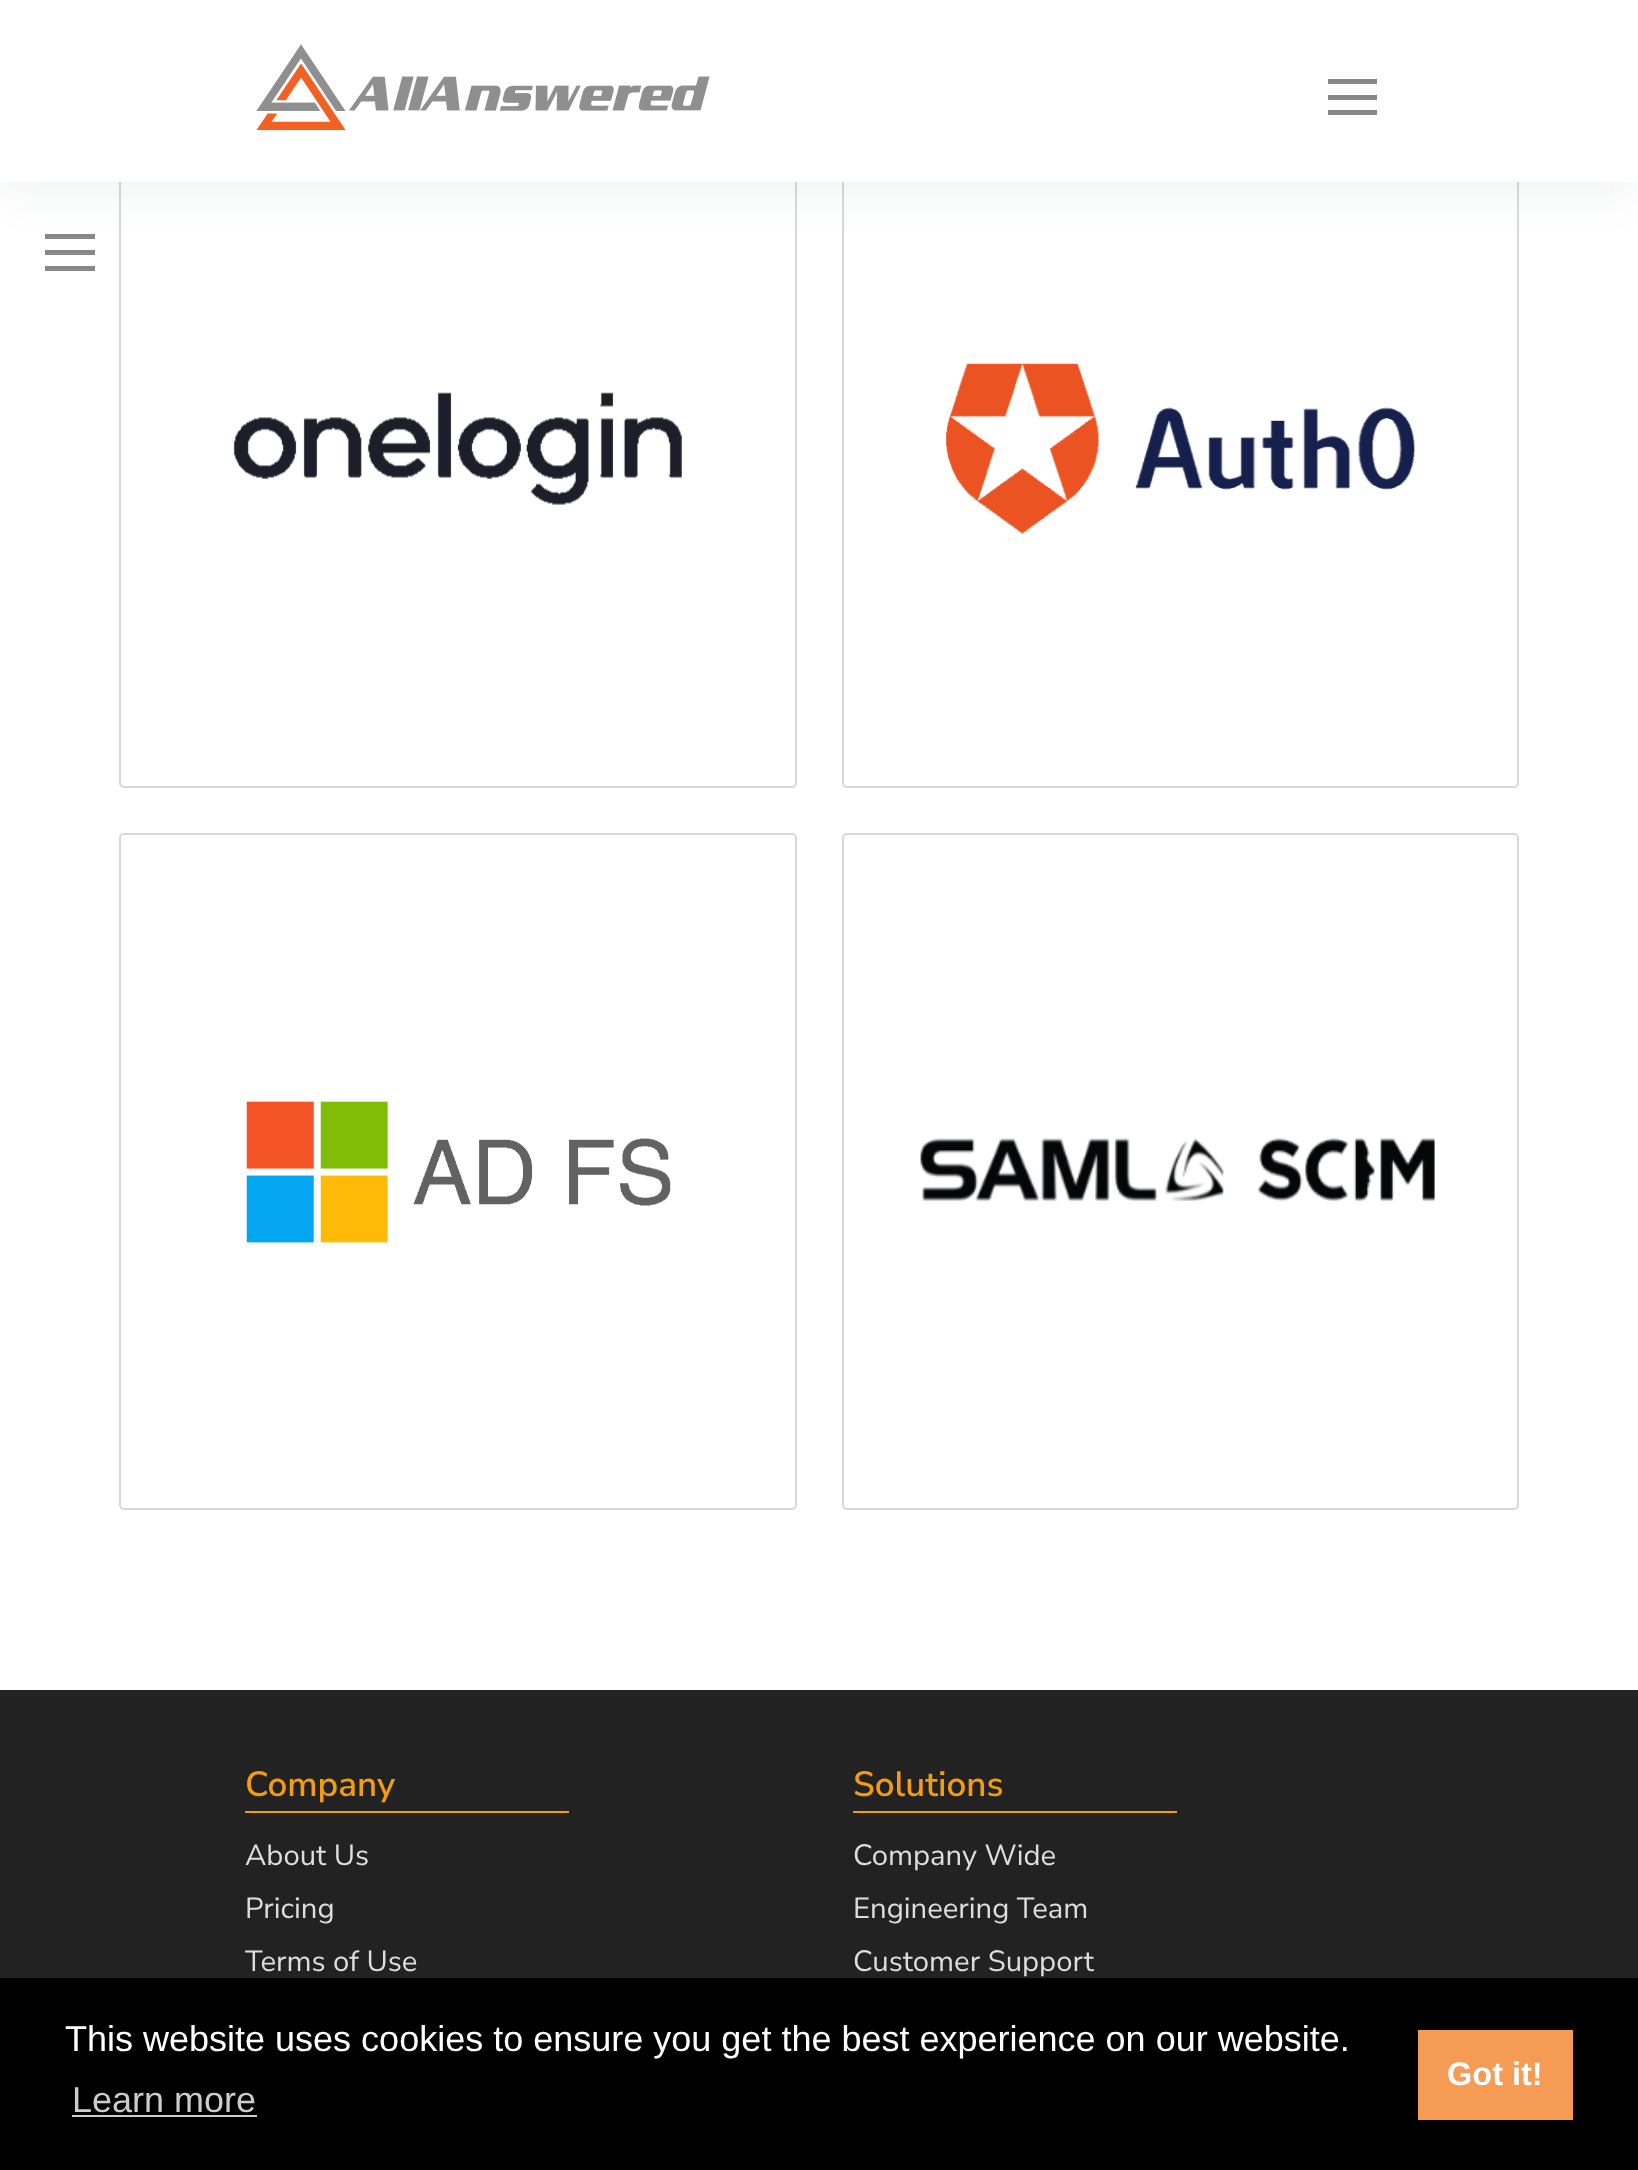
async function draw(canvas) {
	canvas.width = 1638;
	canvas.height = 2170;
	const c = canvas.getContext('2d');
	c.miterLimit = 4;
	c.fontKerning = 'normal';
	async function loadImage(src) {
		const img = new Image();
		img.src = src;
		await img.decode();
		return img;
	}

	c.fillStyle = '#fff';
	c.fillRect(0, 0, 1638, 2170);
	c.fillStyle = '#888';
	c.fillRect(45, 250, 50, 5);
	c.fillRect(45, 234, 50, 5);
	c.beginPath();
	c.roundRect(120, 111, 676, 676, 4);
	c.strokeStyle = '#d8d8d8';
	c.lineWidth = 2;
	c.stroke();
	c.beginPath();
	c.roundRect(843, 111, 675, 676, 4);
	c.stroke();
	c.fillStyle = '#31435112';
	c.filter = 'blur(22.5px)';
	c.beginPath();
	c.rect(0, 9, 1638, 182);
	c.fill();
	c.filter = 'none';
	c.fillStyle = '#fff';
	c.fillRect(0, 0, 1638, 182);
	c.drawImage(await loadImage('img1.png'), 256, 44, 454, 87);
	for (const [x, y, w, h, color] of [
		[1328, 95, 49, 5, '#888'],
		[1328, 79, 49, 5, '#888'],
		[1328, 110, 49, 5, '#888'],
		[45, 266, 50, 5, '#888'],
	]) {
		c.fillStyle = color;
		c.fillRect(x, y, w, h);
	}
	c.drawImage(await loadImage('img2.png'), 233, 392, 449, 113);
	c.drawImage(await loadImage('img3.png'), 946, 363, 469, 171);
	c.beginPath();
	c.roundRect(120, 834, 676, 675, 4);
	c.stroke();
	c.drawImage(await loadImage('img4.png'), 246, 1101, 425, 142);
	c.beginPath();
	c.roundRect(843, 834, 675, 675, 4);
	c.stroke();
	c.drawImage(await loadImage('img5.png'), 920, 1138, 515, 64);
	c.fillStyle = '#222';
	c.fillRect(0, 1690, 1638, 288);
	c.font = '600 35px Nunito Sans';
	c.fillStyle = '#f39c12';
	c.fillText('Company', 245, 1796);
	c.fillRect(245, 1811, 324, 2);
	c.font = '29.25px Nunito Sans';
	c.fillStyle = '#ddd';
	for (const [text, x, y] of [
		['About Us', 245, 1865],
		['Pricing', 245, 1918],
		['Terms of Use', 245, 1971],
	]) {
		c.fillText(text, x, y);
	}
	c.font = '600 35px Nunito Sans';
	c.fillStyle = '#f39c12';
	c.fillText('Solutions', 853, 1796);
	c.fillRect(853, 1811, 324, 2);
	c.font = '29.25px Nunito Sans';
	c.fillStyle = '#ddd';
	for (const [text, x, y] of [
		['Company Wide', 853, 1865],
		['Engineering Team', 853, 1918],
		['Customer Support', 853, 1971],
	]) {
		c.fillText(text, x, y);
	}
	c.fillStyle = '#000';
	c.fillRect(0, 1978, 1638, 192);
	c.font = '36px Liberation Sans';
	c.fillStyle = '#fff';
	c.fillText('This website uses cookies to ensure you get the best experience on our website.', 65, 2051);
	c.fillStyle = '#ccc';
	c.fillText('Learn more', 72, 2112);
	c.fillRect(72, 2115, 185, 2);
	c.fillStyle = '#f59b54';
	c.fillRect(1418, 2030, 155, 90);
	c.font = 'bold 32.5px Liberation Sans';
	c.fillStyle = '#fff';
	c.fillText('Got it!', 1447, 2085);
}

draw(document.querySelector('canvas'));
